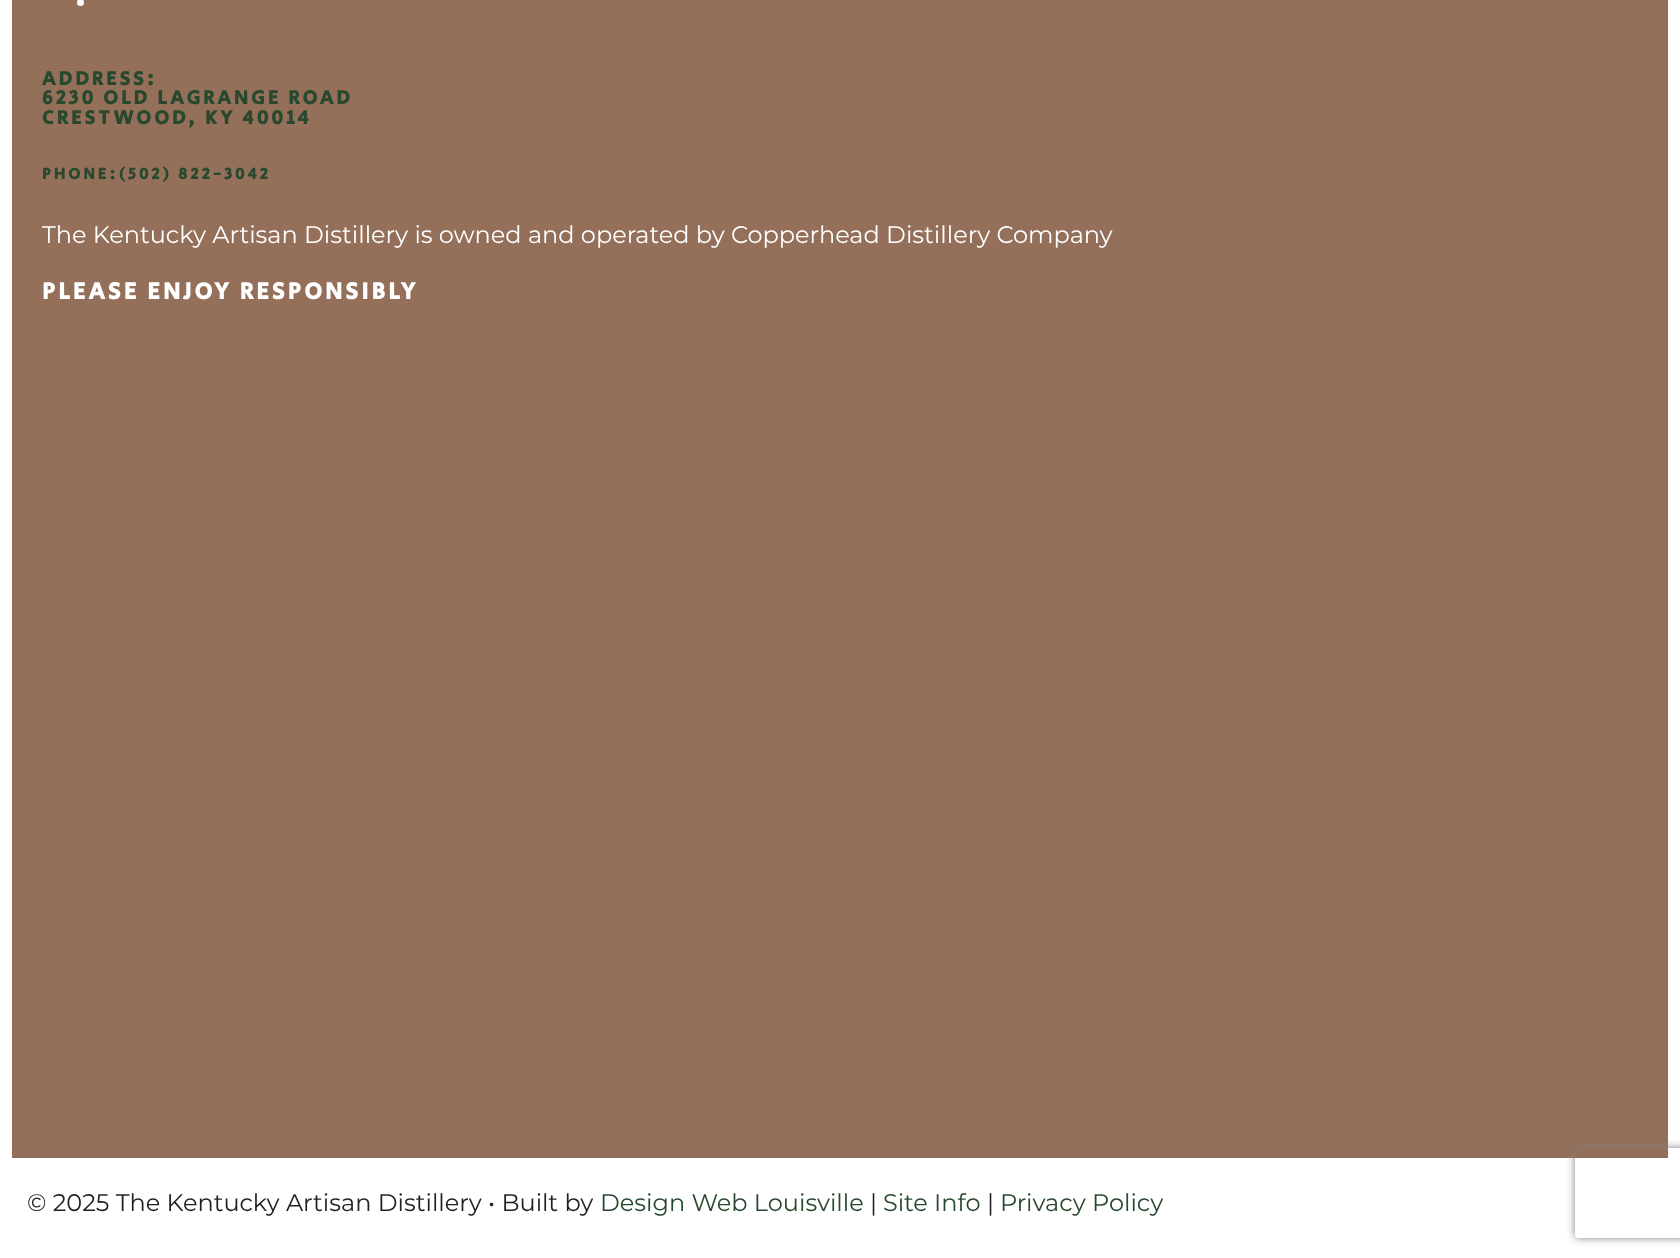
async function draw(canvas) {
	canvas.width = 1680;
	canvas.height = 1258;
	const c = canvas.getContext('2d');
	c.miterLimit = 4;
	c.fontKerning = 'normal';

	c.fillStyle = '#fff';
	c.fillRect(0, 0, 1680, 1258);
	c.fillStyle = '#946f5a';
	c.fillRect(12, 0, 1656, 1158);
	c.fillStyle = '#fff';
	c.beginPath();
	c.arc(80.5, 2.5, 3.5, 0, 2 * Math.PI);
	c.fill();
	c.letterSpacing = '3px';
	c.font = 'bold 19.9px Secular One';
	c.fillStyle = '#28492e';
	for (const [text, x, y] of [
		['ADDRESS:', 42, 85],
		['6230 OLD LAGRANGE ROAD', 42, 104],
		['CRESTWOOD, KY 40014', 42, 124],
	]) {
		c.fillText(text, x, y);
	}
	c.font = 'bold 16.1px Secular One';
	c.fillText('PHONE:(502) 822-3042', 42, 179);
	c.letterSpacing = '0px';
	c.font = '24px Montserrat';
	c.fillStyle = '#fff';
	c.fillText('The Kentucky Artisan Distillery is owned and operated by Copperhead Distillery Company', 42, 243);
	c.letterSpacing = '3px';
	c.font = 'bold 24px Secular One';
	c.fillText('PLEASE ENJOY RESPONSIBLY', 42, 299);
	c.letterSpacing = '0px';
	c.font = '24px Montserrat';
	c.fillStyle = '#1d1f21';
	c.fillText('© 2025 The Kentucky Artisan Distillery • Built by', 27, 1211);
	c.fillStyle = '#28492e';
	c.fillText('Design Web Louisville', 600, 1211);
	c.fillStyle = '#1d1f21';
	c.fillText('|', 870, 1211);
	c.fillStyle = '#28492e';
	c.fillText('Site Info', 883, 1211);
	c.fillStyle = '#1d1f21';
	c.fillText('|', 987, 1211);
	c.fillStyle = '#28492e';
	c.fillText('Privacy Policy', 1000, 1211);
	c.save();
	c.beginPath();
	c.moveTo(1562, 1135);
	c.lineTo(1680, 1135);
	c.lineTo(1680, 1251);
	c.lineTo(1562, 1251);
	c.closePath();
	c.moveTo(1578, 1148);
	c.lineTo(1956, 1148);
	c.bezierCurveTo(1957.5, 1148, 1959, 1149.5, 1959, 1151);
	c.lineTo(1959, 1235);
	c.bezierCurveTo(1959, 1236.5, 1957.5, 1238, 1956, 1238);
	c.lineTo(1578, 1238);
	c.bezierCurveTo(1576.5, 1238, 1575, 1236.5, 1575, 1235);
	c.lineTo(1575, 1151);
	c.bezierCurveTo(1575, 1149.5, 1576.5, 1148, 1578, 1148);
	c.closePath();
	c.clip('evenodd');
	c.fillStyle = '#808080';
	c.filter = 'blur(4px)';
	c.beginPath();
	c.roundRect(1575, 1148, 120, 90, 3);
	c.fill();
	c.filter = 'none';
	c.restore();
}

draw(document.querySelector('canvas'));
